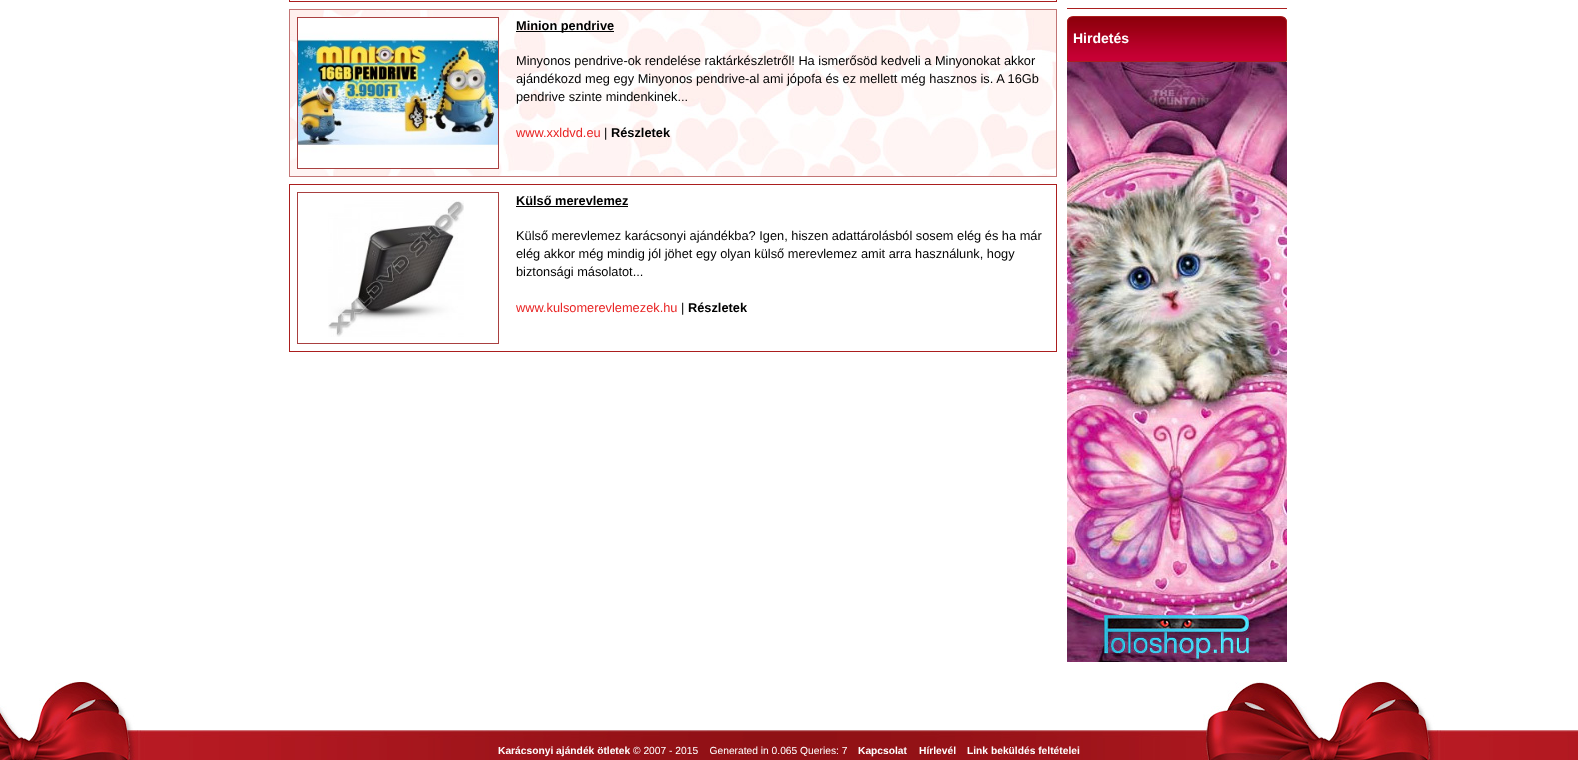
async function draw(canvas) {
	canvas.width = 1578;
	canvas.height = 760;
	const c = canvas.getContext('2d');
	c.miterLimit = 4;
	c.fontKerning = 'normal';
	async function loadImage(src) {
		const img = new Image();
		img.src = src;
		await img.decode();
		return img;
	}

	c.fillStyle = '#fff';
	c.fillRect(0, 0, 1578, 760);
	c.strokeStyle = '#ab1e1e';
	c.strokeRect(289.5, -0.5, 767, 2);
	c.drawImage(await loadImage('img1.png'), 290, 10, 766, 166);
	c.strokeStyle = '#c27575';
	c.strokeRect(289.5, 9.5, 767, 167);
	c.strokeStyle = '#a94040';
	c.strokeRect(297.5, 17.5, 201, 151);
	c.drawImage(await loadImage('img2.png'), 298, 18, 200, 150);
	c.fillStyle = '#000';
	c.fillRect(516, 31, 98, 1);
	c.font = 'bold 12.8px Liberation Sans';
	c.fillText('Minion pendrive', 516, 30);
	c.font = '12.8px Liberation Sans';
	for (const [text, x, y] of [
		['Minyonos pendrive-ok rendelése raktárkészletről! Ha ismerősöd kedveli a Minyonokat akkor', 516, 65],
		['ajándékozd meg egy Minyonos pendrive-al ami jópofa és ez mellett még hasznos is. A 16Gb', 516, 83],
		['pendrive szinte mindenkinek...', 516, 101],
	]) {
		c.fillText(text, x, y);
	}
	c.fillStyle = '#e82323';
	c.fillText('www.xxldvd.eu', 516, 137);
	c.fillStyle = '#000';
	c.fillText('|', 604, 137);
	c.font = 'bold 12.8px Liberation Sans';
	c.fillText('Részletek', 611, 137);
	c.strokeStyle = '#ab1e1e';
	c.strokeRect(289.5, 184.5, 767, 167);
	c.strokeStyle = '#a94040';
	c.strokeRect(297.5, 192.5, 201, 151);
	c.drawImage(await loadImage('img3.png'), 328, 200, 136, 137);
	c.fillText('Külső merevlemez', 516, 205);
	c.fillRect(516, 206, 112, 1);
	c.font = '12.8px Liberation Sans';
	for (const [text, x, y] of [
		['Külső merevlemez karácsonyi ajándékba? Igen, hiszen adattárolásból sosem elég és ha már', 516, 240],
		['elég akkor még mindig jól jöhet egy olyan külső merevlemez amit arra használunk, hogy', 516, 258],
		['biztonsági másolatot...', 516, 276],
	]) {
		c.fillText(text, x, y);
	}
	c.fillStyle = '#e82323';
	c.fillText('www.kulsomerevlemezek.hu', 516, 312);
	c.fillStyle = '#000';
	c.fillText('|', 681, 312);
	c.font = 'bold 12.8px Liberation Sans';
	c.fillText('Részletek', 688, 312);
	c.fillStyle = '#ab1e1e';
	c.fillRect(1067, 8, 220, 1);
	c.drawImage(await loadImage('img4.png'), 1067, 17, 220, 44);
	c.beginPath();
	c.roundRect(1067.5, 16.5, 219, 45, [5.5, 5.5, 0, 0]);
	c.strokeStyle = '#ab1e1e';
	c.stroke();
	c.font = 'bold 14px Liberation Sans';
	c.fillStyle = '#fff';
	c.fillText('Hirdetés', 1073, 43);
	c.drawImage(await loadImage('img5.png'), 1067, 62, 220, 600);
	c.drawImage(await loadImage('img6.png'), 0, 682, 1578, 78);
	c.font = 'bold 10.25px Liberation Sans';
	c.fillText('Karácsonyi ajándék ötletek', 498, 754);
	c.font = '10.25px Liberation Sans';
	c.fillText('© 2007 - 2015    Generated in 0.065 Queries: 7', 633, 754);
	c.font = 'bold 10.25px Liberation Sans';
	for (const [text, x, y] of [
		['Kapcsolat', 858, 754],
		['Hírlevél', 919, 754],
		['Link beküldés feltételei', 967, 754],
	]) {
		c.fillText(text, x, y);
	}
}

draw(document.querySelector('canvas'));
